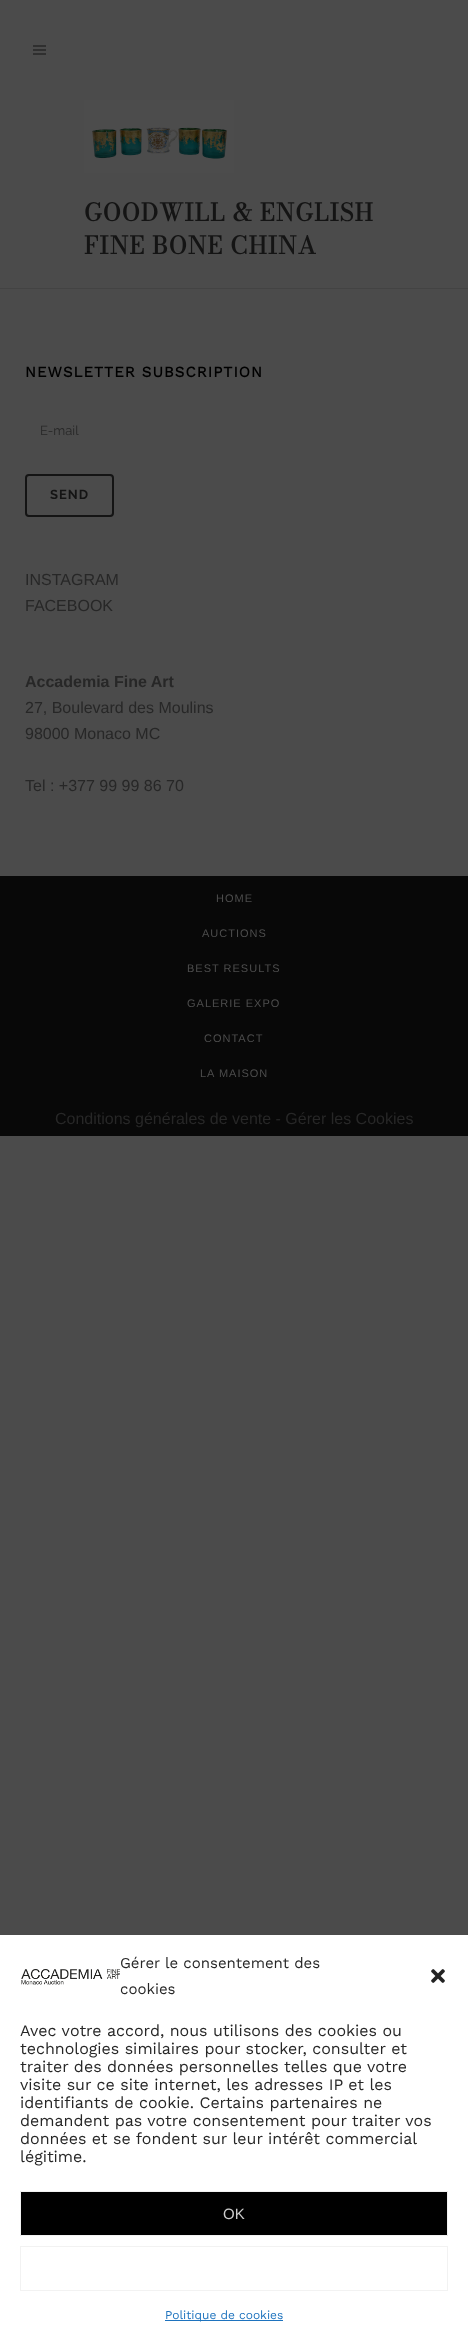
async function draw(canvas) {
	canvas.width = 468;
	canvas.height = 2343;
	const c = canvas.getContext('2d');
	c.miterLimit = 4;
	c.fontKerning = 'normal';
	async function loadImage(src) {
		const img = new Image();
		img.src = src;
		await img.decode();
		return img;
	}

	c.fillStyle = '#4b4b4b';
	c.fillRect(0, 0, 468, 2343);
	for (const [x, y, w, h, color] of [
		[33, 49, 13, 2, '#2f2f2f'],
		[33, 45, 13, 2, '#2f2f2f'],
		[33, 53, 13, 2, '#2f2f2f'],
	]) {
		c.fillStyle = color;
		c.fillRect(x, y, w, h);
	}
	c.drawImage(await loadImage('img1.png'), 84, 100, 150, 73);
	c.letterSpacing = '1px';
	c.font = 'bold 24px Bodoni Moda';
	c.fillStyle = '#141414';
	c.fillText('GOODWILL & ENGLISH', 84, 221);
	c.fillText('FINE BONE CHINA', 84, 254);
	c.fillStyle = '#434343';
	c.fillRect(0, 288, 468, 1);
	c.font = 'bold 15px Work Sans';
	c.fillStyle = '#000';
	c.fillText('NEWSLETTER SUBSCRIPTION', 25, 377);
	c.letterSpacing = '0px';
	c.font = '13px Raleway';
	c.fillStyle = '#272727';
	c.fillText('E-mail', 40, 435);
	c.beginPath();
	c.roundRect(26, 475, 87, 41, 3);
	c.strokeStyle = '#141414';
	c.lineWidth = 2;
	c.stroke();
	c.letterSpacing = '1px';
	c.font = 'bold 13px Raleway';
	c.fillStyle = '#141414';
	c.fillText('SEND', 50, 499);
	c.letterSpacing = '0px';
	c.font = '16px Liberation Sans';
	c.fillStyle = '#272727';
	c.fillText('INSTAGRAM', 25, 585);
	c.fillText('FACEBOOK', 25, 611);
	c.font = 'bold 16px Liberation Sans';
	c.fillText('Accademia Fine Art', 25, 687);
	c.font = '16px Liberation Sans';
	for (const [text, x, y] of [
		['27, Boulevard des Moulins', 25, 713],
		['98000 Monaco MC', 25, 739],
		['Tel : +377 99 99 86 70', 25, 791],
	]) {
		c.fillText(text, x, y);
	}
	c.fillStyle = '#080808';
	c.fillRect(0, 876, 468, 260);
	c.letterSpacing = '1px';
	c.font = '11px Liberation Sans';
	c.fillStyle = '#4d4d4d';
	for (const [text, x, y] of [
		['HOME', 216, 902],
		['AUCTIONS', 202, 937],
		['BEST RESULTS', 187, 972],
		['GALERIE EXPO', 187, 1007],
		['CONTACT', 204, 1042],
		['LA MAISON', 200, 1077],
	]) {
		c.fillText(text, x, y);
	}
	c.letterSpacing = '0px';
	c.font = '16px Liberation Sans';
	c.fillStyle = '#272727';
	c.fillText('Conditions générales de vente - Gérer les Cookies', 55, 1124);
	c.fillStyle = '#fff';
	c.fillRect(0, 1935, 468, 408);
	c.drawImage(await loadImage('img2.png'), 21, 1969, 99, 16);
	c.font = '15px Work Sans';
	c.fillStyle = '#272727';
	c.fillText('Gérer le consentement des', 120, 1968);
	c.fillText('cookies', 120, 1994);
	c.drawImage(await loadImage('img3.png'), 431, 1969, 14, 14);
	c.font = '16px Work Sans';
	for (const [text, x, y] of [
		['Avec votre accord, nous utilisons des cookies ou', 20, 2036],
		['technologies similaires pour stocker, consulter et', 20, 2054],
		['traiter des données personnelles telles que votre', 20, 2072],
		['visite sur ce site internet, les adresses IP et les', 20, 2090],
		['identifiants de cookie. Certains partenaires ne', 20, 2108],
		['demandent pas votre consentement pour traiter vos', 20, 2126],
		['données et se fondent sur leur intérêt commercial', 20, 2144],
		['légitime.', 20, 2162],
	]) {
		c.fillText(text, x, y);
	}
	c.fillStyle = '#000';
	c.beginPath();
	c.rect(20.5, 2191.5, 427, 44);
	c.fill();
	c.strokeStyle = '#f2f2f2';
	c.lineWidth = 1;
	c.stroke();
	c.font = '15px Liberation Sans';
	c.fillStyle = '#ccc';
	c.fillText('OK', 223, 2219);
	c.strokeRect(20.5, 2246.5, 427, 44);
	c.fillStyle = '#1e73be';
	c.fillRect(165, 2320, 118, 1);
	c.font = '12px Work Sans';
	c.fillText('Politique de cookies', 165, 2319);
}

draw(document.querySelector('canvas'));
